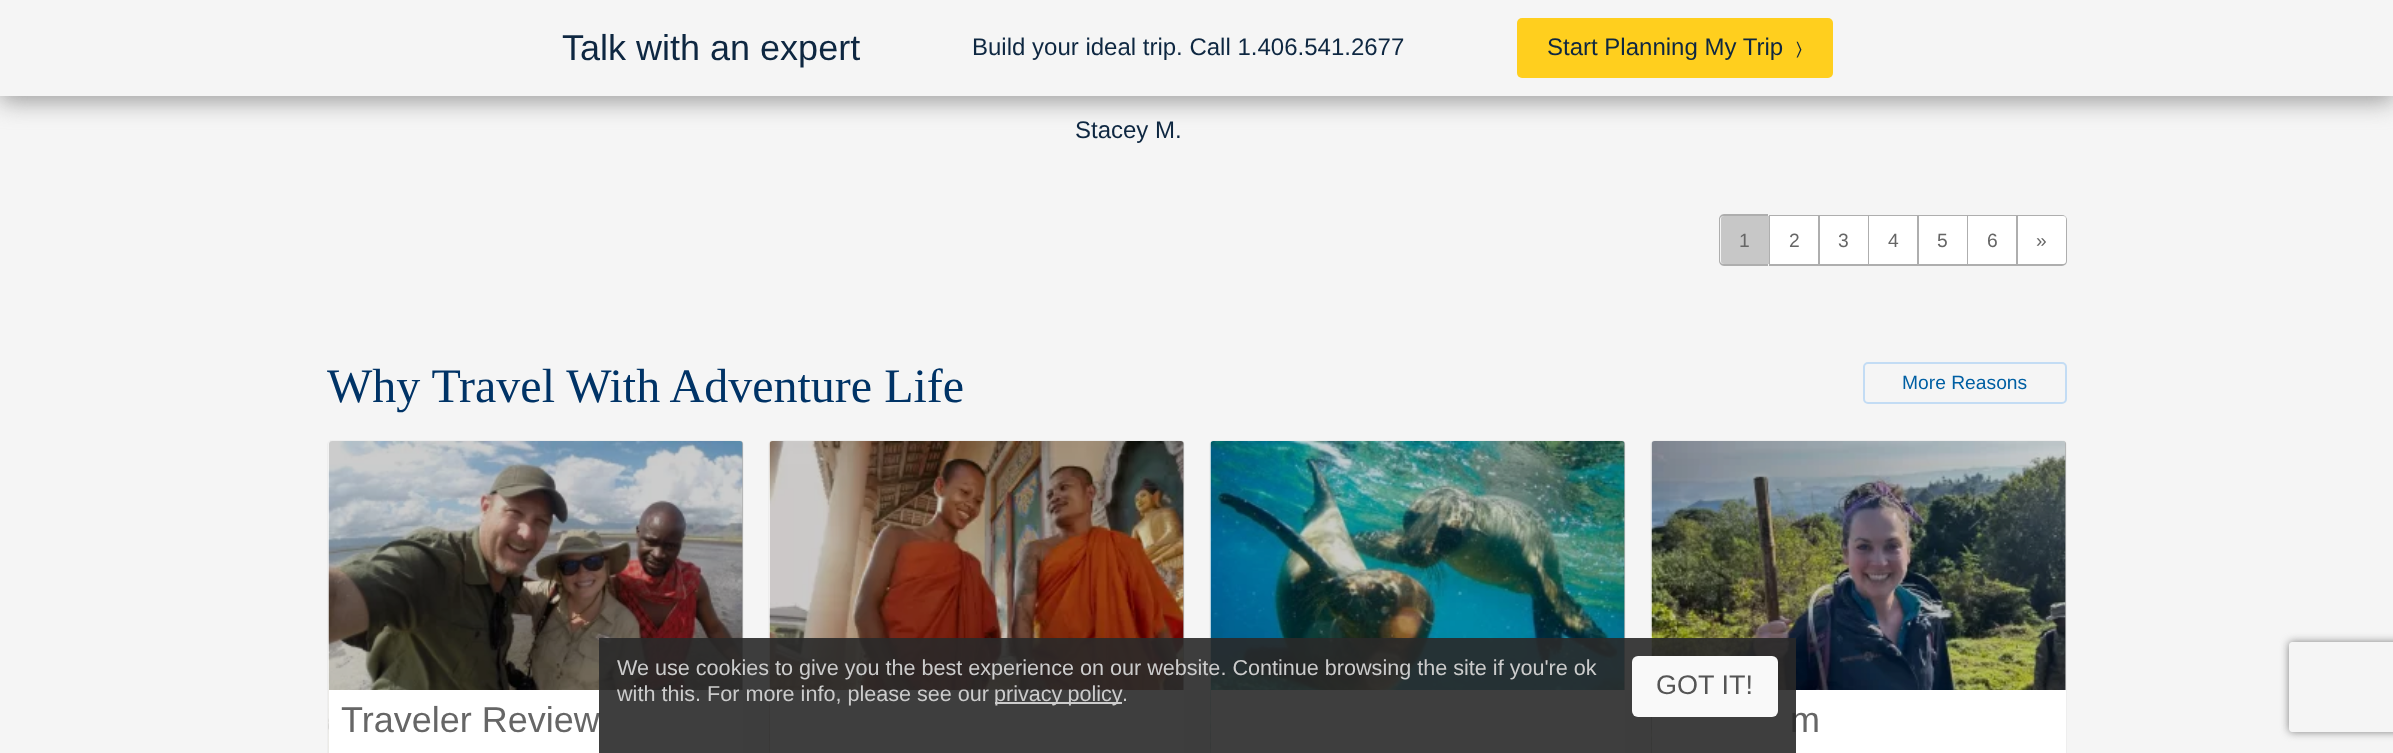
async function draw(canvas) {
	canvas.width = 2393;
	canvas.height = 753;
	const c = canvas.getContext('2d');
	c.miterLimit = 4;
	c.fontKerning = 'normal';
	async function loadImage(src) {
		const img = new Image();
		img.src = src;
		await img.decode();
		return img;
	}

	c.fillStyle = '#f5f5f5';
	c.fillRect(0, 0, 2393, 753);
	c.fillStyle = '#999';
	c.filter = 'blur(12px)';
	c.beginPath();
	c.rect(0, 5, 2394, 96);
	c.fill();
	c.filter = 'none';
	c.fillStyle = '#f5f5f5';
	c.fillRect(0, 0, 2393, 96);
	c.font = '36px Liberation Sans';
	c.fillStyle = '#0e2741';
	c.fillText('Talk with an expert', 562, 60);
	c.font = '24px Liberation Sans';
	c.fillText('Build your ideal trip. Call 1.406.541.2677', 972, 55);
	c.fillStyle = '#ffcf1e';
	c.beginPath();
	c.roundRect(1517, 18, 316, 60, 5);
	c.fill();
	c.fillStyle = '#0e2741';
	c.fillText('Start Planning My Trip', 1547, 55);
	c.font = '18px FreeSans';
	c.fillText('〉', 1796, 55);
	c.font = '24px Liberation Sans';
	c.fillText('Stacey M.', 1075, 138);
	c.fillStyle = '#aeaeae';
	c.beginPath();
	c.moveTo(1724, 214);
	c.lineTo(1768, 214);
	c.lineTo(1768, 266);
	c.lineTo(1724, 266);
	c.bezierCurveTo(1721, 266, 1719, 263, 1719, 261);
	c.lineTo(1719, 219);
	c.bezierCurveTo(1719, 217, 1721, 214, 1724, 214);
	c.closePath();
	c.moveTo(1724, 216);
	c.lineTo(1768, 216);
	c.lineTo(1768, 264);
	c.lineTo(1724, 264);
	c.bezierCurveTo(1722, 264, 1720, 263, 1720, 261);
	c.lineTo(1720, 219);
	c.bezierCurveTo(1720, 217, 1722, 216, 1724, 216);
	c.closePath();
	c.fill('evenodd');
	c.fillStyle = '#c7c7c7';
	c.beginPath();
	c.roundRect(1721, 216, 48, 48, [3, 0, 0, 3]);
	c.fill();
	c.font = '19.25px Liberation Sans';
	c.fillStyle = '#666';
	c.fillText('1', 1739, 247);
	for (const [x, y, w, h, color] of [
		[1769, 215, 247, 1, '#aeaeae'],
		[1769, 264, 247, 2, '#aeaeae'],
		[1769, 215, 2, 51, '#aeaeae'],
		[1770, 216, 48, 48, '#fff'],
	]) {
		c.fillStyle = color;
		c.fillRect(x, y, w, h);
	}
	c.fillStyle = '#666';
	c.fillText('2', 1789, 247);
	c.fillStyle = '#aeaeae';
	c.fillRect(1818, 215, 2, 51);
	c.fillStyle = '#fff';
	c.fillRect(1820, 216, 48, 48);
	c.fillStyle = '#666';
	c.fillText('3', 1838, 247);
	c.fillStyle = '#aeaeae';
	c.fillRect(1868, 215, 2, 51);
	c.fillStyle = '#fff';
	c.fillRect(1869, 216, 48, 48);
	c.fillStyle = '#666';
	c.fillText('4', 1888, 247);
	c.fillStyle = '#aeaeae';
	c.fillRect(1917, 215, 2, 51);
	c.fillStyle = '#fff';
	c.fillRect(1919, 216, 48, 48);
	c.fillStyle = '#666';
	c.fillText('5', 1937, 247);
	c.fillStyle = '#aeaeae';
	c.fillRect(1967, 215, 2, 51);
	c.fillStyle = '#fff';
	c.fillRect(1968, 216, 48, 48);
	c.fillStyle = '#666';
	c.fillText('6', 1987, 247);
	c.beginPath();
	c.roundRect(2017, 216, 49, 49, [0, 4, 4, 0]);
	c.strokeStyle = '#aeaeae';
	c.lineWidth = 2;
	c.stroke();
	c.fillStyle = '#fff';
	c.beginPath();
	c.roundRect(2018, 216, 48, 48, [0, 3, 3, 0]);
	c.fill();
	c.fillStyle = '#666';
	c.fillText('»', 2036, 247);
	c.font = '48px Liberation Serif';
	c.fillStyle = '#036';
	c.fillText('Why Travel With Adventure Life', 327, 402);
	c.beginPath();
	c.roundRect(1864, 363, 202, 40, 4);
	c.strokeStyle = '#c3dcf4';
	c.stroke();
	c.font = '19.25px Liberation Sans';
	c.fillStyle = '#005fa3';
	c.fillText('More Reasons', 1902, 389);
	c.beginPath();
	c.roundRect(328, 441, 415, 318, 4);
	c.strokeStyle = '#eee';
	c.stroke();
	c.fillStyle = '#ddd';
	c.beginPath();
	c.roundRect(329, 441, 414, 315, 3);
	c.fill();
	c.drawImage(await loadImage('img1.png'), 328, 441, 415, 312);
	c.fillStyle = '#00000033';
	c.beginPath();
	c.roundRect(329, 441, 414, 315, 3);
	c.fill();
	c.fillStyle = '#fff';
	c.fillRect(329, 690, 414, 63);
	c.font = '36px Liberation Sans';
	c.fillStyle = '#666';
	c.fillText('Traveler Review', 341, 732);
	c.beginPath();
	c.roundRect(769, 441, 415, 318, 4);
	c.stroke();
	c.fillStyle = '#ddd';
	c.beginPath();
	c.roundRect(770, 441, 414, 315, 3);
	c.fill();
	c.drawImage(await loadImage('img2.png'), 769, 441, 415, 312);
	c.fillStyle = '#00000033';
	c.beginPath();
	c.roundRect(770, 441, 414, 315, 3);
	c.fill();
	c.fillStyle = '#fff';
	c.fillRect(770, 690, 414, 63);
	c.beginPath();
	c.roundRect(1210, 441, 415, 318, 4);
	c.stroke();
	c.fillStyle = '#ddd';
	c.beginPath();
	c.roundRect(1211, 441, 414, 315, 3);
	c.fill();
	c.drawImage(await loadImage('img3.png'), 1210, 441, 415, 312);
	c.fillStyle = '#00000033';
	c.beginPath();
	c.roundRect(1211, 441, 414, 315, 3);
	c.fill();
	c.fillStyle = '#fff';
	c.fillRect(1211, 690, 414, 63);
	c.beginPath();
	c.roundRect(1651, 441, 415, 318, 4);
	c.stroke();
	c.fillStyle = '#ddd';
	c.beginPath();
	c.roundRect(1652, 441, 414, 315, 3);
	c.fill();
	c.drawImage(await loadImage('img4.png'), 1651, 441, 415, 312);
	c.fillStyle = '#00000033';
	c.beginPath();
	c.roundRect(1652, 441, 414, 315, 3);
	c.fill();
	c.fillStyle = '#fff';
	c.fillRect(1652, 690, 414, 63);
	c.fillStyle = '#666';
	c.fillText('m', 1790, 732);
	c.save();
	c.beginPath();
	c.moveTo(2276, 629);
	c.lineTo(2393, 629);
	c.lineTo(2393, 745);
	c.lineTo(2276, 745);
	c.closePath();
	c.moveTo(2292, 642);
	c.lineTo(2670, 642);
	c.bezierCurveTo(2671.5, 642, 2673, 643.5, 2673, 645);
	c.lineTo(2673, 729);
	c.bezierCurveTo(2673, 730.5, 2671.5, 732, 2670, 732);
	c.lineTo(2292, 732);
	c.bezierCurveTo(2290.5, 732, 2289, 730.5, 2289, 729);
	c.lineTo(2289, 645);
	c.bezierCurveTo(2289, 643.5, 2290.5, 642, 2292, 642);
	c.closePath();
	c.clip('evenodd');
	c.fillStyle = '#808080';
	c.filter = 'blur(4px)';
	c.beginPath();
	c.roundRect(2289, 642, 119, 90, 3);
	c.fill();
	c.filter = 'none';
	c.restore();
	c.fillStyle = '#292929e6';
	c.fillRect(599, 638, 1197, 115);
	c.font = '21.6px Liberation Sans';
	c.fillStyle = '#ccc';
	c.fillText('We use cookies to give you the best experience on our website. Continue browsing the site if you\'re ok', 617, 675);
	c.fillText('with this. For more info, please see our', 617, 701);
	c.fillRect(995, 702, 127, 2);
	c.wordSpacing = '-1px';
	c.fillText('privacy policy', 994, 701);
	c.wordSpacing = '0px';
	c.fillText('.', 1122, 701);
	c.fillStyle = '#f9f9f9';
	c.beginPath();
	c.roundRect(1632, 656, 146, 61, 6);
	c.fill();
	c.font = '27px Liberation Sans';
	c.fillStyle = '#555';
	c.fillText('GOT IT!', 1656, 694);
}

draw(document.querySelector('canvas'));
